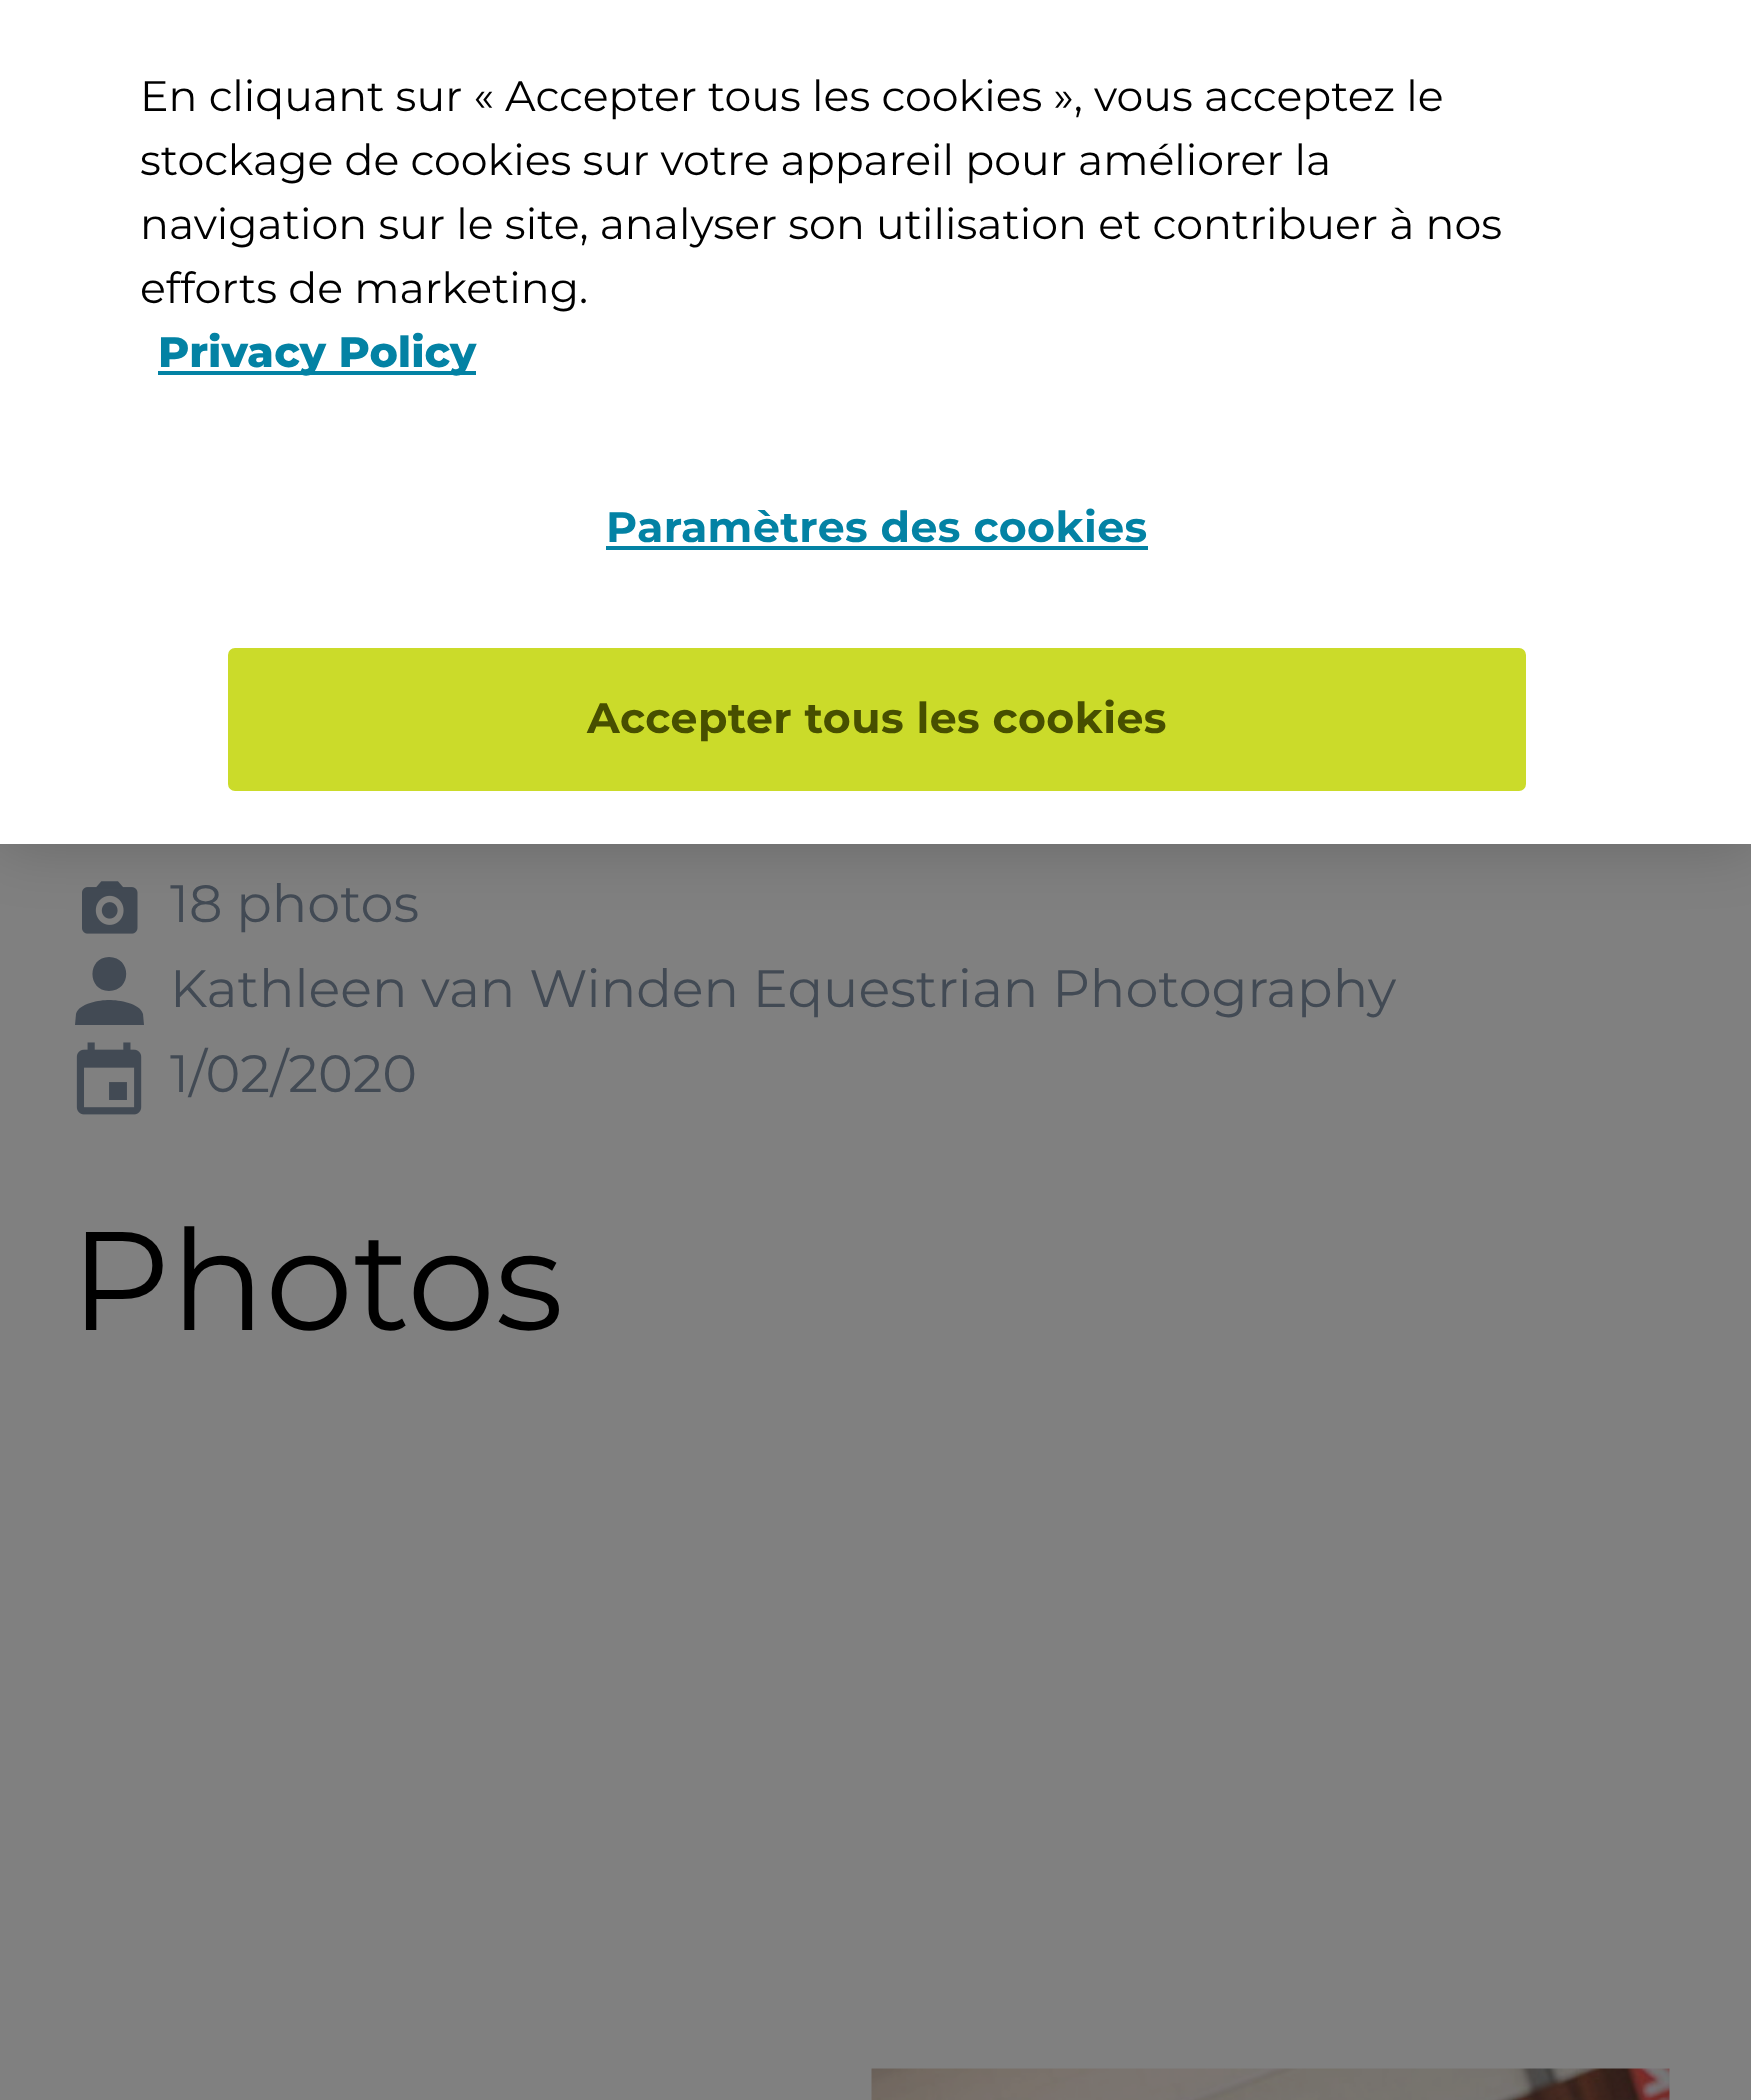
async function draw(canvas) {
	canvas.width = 1751;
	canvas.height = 2100;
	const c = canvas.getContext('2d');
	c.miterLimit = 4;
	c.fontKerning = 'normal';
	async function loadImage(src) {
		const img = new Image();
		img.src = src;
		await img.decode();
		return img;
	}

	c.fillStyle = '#808080';
	c.fillRect(0, 0, 1751, 2100);
	c.drawImage(await loadImage('img1.png'), 82, 881, 56, 53);
	c.fillStyle = '#00000033';
	c.filter = 'blur(31.5px)';
	c.beginPath();
	c.rect(0, 0, 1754, 844);
	c.fill();
	c.filter = 'none';
	c.fillStyle = '#fff';
	c.fillRect(0, 0, 1751, 844);
	c.font = '42.7px Montserrat';
	c.fillStyle = '#000';
	for (const [text, x, y] of [
		['En cliquant sur « Accepter tous les cookies », vous acceptez le', 140, 111],
		['stockage de cookies sur votre appareil pour améliorer la', 140, 175],
		['navigation sur le site, analyser son utilisation et contribuer à nos', 140, 239],
		['efforts de marketing.', 140, 303],
	]) {
		c.fillText(text, x, y);
	}
	c.fillStyle = '#0382a4';
	c.fillRect(158, 371, 318, 4);
	c.font = '800 42.7px Montserrat';
	c.fillText('Privacy Policy', 158, 367);
	c.letterSpacing = '0.4px';
	c.font = 'bold 42.7px Montserrat';
	c.fillText('Paramètres des cookies', 606, 542);
	c.fillRect(606, 546, 542, 4);
	c.fillStyle = '#cbdb2a';
	c.beginPath();
	c.roundRect(230, 650, 1294, 139, 5);
	c.fill();
	c.strokeStyle = '#cbdb2a';
	c.lineWidth = 4;
	c.stroke();
	c.fillStyle = '#474f00';
	c.fillText('Accepter tous les cookies', 587, 733);
	c.letterSpacing = '0px';
	c.font = '52.5px Montserrat';
	c.fillStyle = '#424a54';
	c.fillText('18 photos', 170, 922);
	c.beginPath();
	c.moveTo(109, 991);
	c.bezierCurveTo(132, 991, 132, 957, 109, 957);
	c.bezierCurveTo(87, 957, 87, 991, 109, 991);
	c.closePath();
	c.moveTo(109, 1000);
	c.bezierCurveTo(100, 1000, 79, 1003, 76, 1014);
	c.lineTo(75, 1025);
	c.lineTo(144, 1025);
	c.lineTo(143, 1014);
	c.bezierCurveTo(140, 1003, 119, 1000, 109, 1000);
	c.closePath();
	c.fill();
	c.fillText('Kathleen van Winden Equestrian Photography', 170, 1007);
	c.drawImage(await loadImage('img2.png'), 76, 1042, 66, 73);
	c.fillText('1/02/2020', 170, 1092);
	c.font = '140px Montserrat';
	c.fillStyle = '#000';
	c.fillText('Photos', 70, 1330);
	c.drawImage(await loadImage('img3.png'), 871, 2068, 799, 32);
}

draw(document.querySelector('canvas'));
